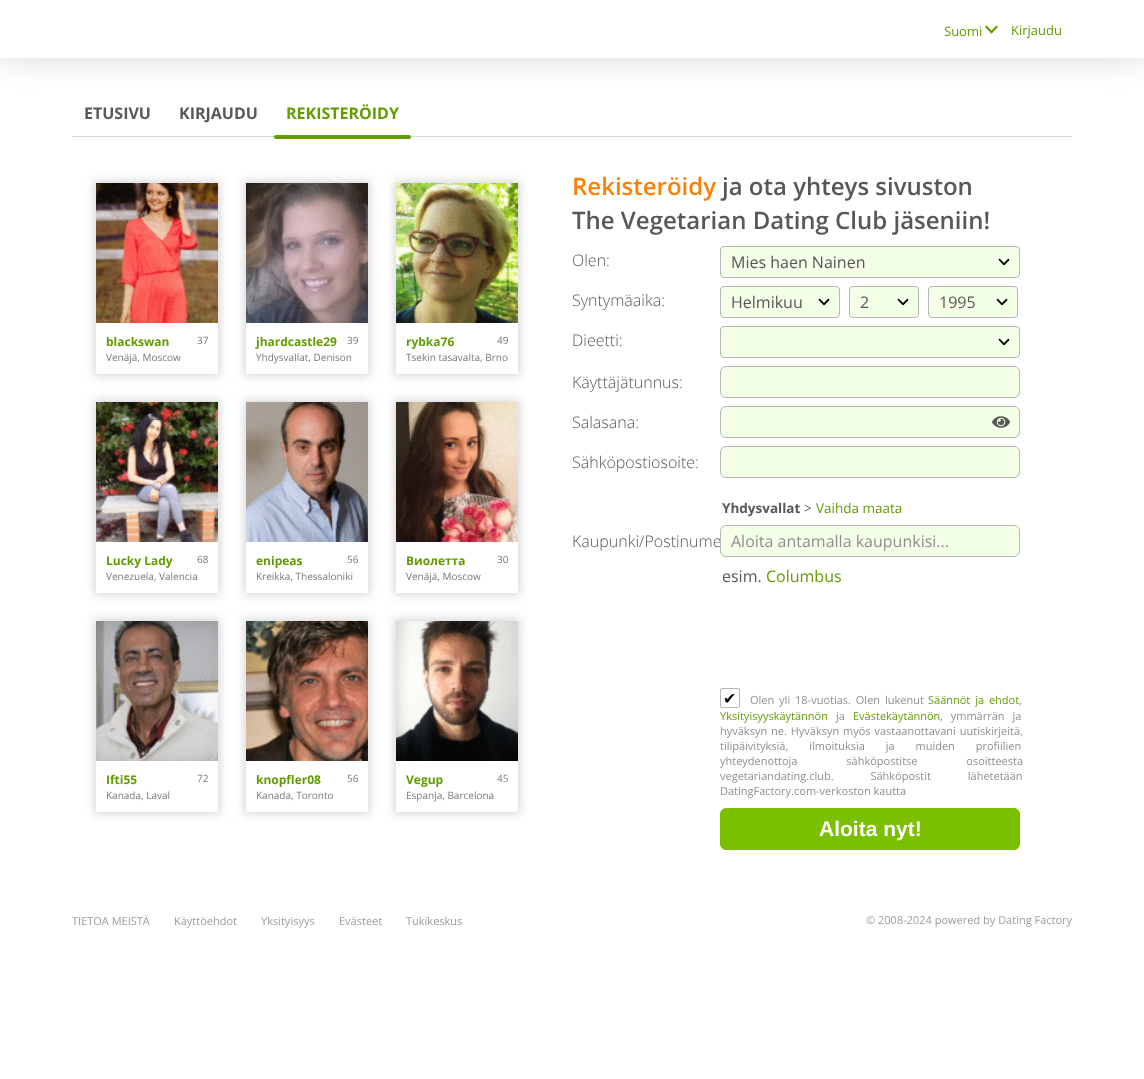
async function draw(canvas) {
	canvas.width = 1144;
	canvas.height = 1079;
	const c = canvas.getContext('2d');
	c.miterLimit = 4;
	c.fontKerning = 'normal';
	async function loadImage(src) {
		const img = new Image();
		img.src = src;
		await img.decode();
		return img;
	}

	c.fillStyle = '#fff';
	c.fillRect(0, 0, 1144, 1079);
	c.save();
	c.beginPath();
	c.rect(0, 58, 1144, 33);
	c.clip();
	c.fillStyle = '#d7d7d7';
	c.filter = 'blur(16px)';
	c.beginPath();
	c.rect(0, 0, 1144, 58);
	c.fill();
	c.filter = 'none';
	c.restore();
	c.font = '13px Open Sans';
	c.fillStyle = '#639c00';
	c.fillText('Suomi', 944, 36);
	c.beginPath();
	c.moveTo(996.5, 25.5);
	c.lineTo(998, 27);
	c.lineTo(991.5, 33.5);
	c.lineTo(990, 32);
	c.closePath();
	c.fill();
	c.beginPath();
	c.moveTo(986.5, 25.5);
	c.lineTo(993, 32);
	c.lineTo(991.5, 33.5);
	c.lineTo(985, 27);
	c.closePath();
	c.fill();
	c.fillText('Kirjaudu', 1011, 35);
	c.fillStyle = '#d7d7d7';
	c.fillRect(72, 136, 1000, 1);
	c.font = 'bold 16px Open Sans';
	c.fillStyle = '#585858';
	c.fillText('ETUSIVU', 84, 119);
	c.fillText('KIRJAUDU', 179, 119);
	c.fillStyle = '#639c00';
	c.fillText('REKISTERÖIDY', 286, 119);
	c.beginPath();
	c.roundRect(274, 135, 137, 4, 2);
	c.fill();
	c.save();
	c.beginPath();
	c.moveTo(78, 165);
	c.lineTo(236, 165);
	c.lineTo(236, 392);
	c.lineTo(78, 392);
	c.closePath();
	c.moveTo(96, 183);
	c.lineTo(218, 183);
	c.lineTo(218, 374);
	c.lineTo(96, 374);
	c.closePath();
	c.clip('evenodd');
	c.fillStyle = '#d7d7d7';
	c.filter = 'blur(5px)';
	c.beginPath();
	c.rect(94, 181, 126, 195);
	c.fill();
	c.filter = 'none';
	c.restore();
	c.drawImage(await loadImage('img1.png'), 96, 183, 122, 140);
	c.font = 'bold 12px Open Sans';
	c.fillText('blackswan', 106, 346);
	c.font = '10px Open Sans';
	c.fillStyle = '#797979';
	c.fillText('37', 197, 344);
	c.fillText('Venäjä, Moscow', 106, 361);
	c.save();
	c.beginPath();
	c.moveTo(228, 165);
	c.lineTo(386, 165);
	c.lineTo(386, 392);
	c.lineTo(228, 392);
	c.closePath();
	c.moveTo(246, 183);
	c.lineTo(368, 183);
	c.lineTo(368, 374);
	c.lineTo(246, 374);
	c.closePath();
	c.clip('evenodd');
	c.fillStyle = '#d7d7d7';
	c.filter = 'blur(5px)';
	c.beginPath();
	c.rect(244, 181, 126, 195);
	c.fill();
	c.filter = 'none';
	c.restore();
	c.drawImage(await loadImage('img2.png'), 246, 183, 122, 140);
	c.font = 'bold 12px Open Sans';
	c.fillStyle = '#639c00';
	c.fillText('jhardcastle29', 256, 346);
	c.font = '10px Open Sans';
	c.fillStyle = '#797979';
	c.fillText('39', 347, 344);
	c.fillText('Yhdysvallat, Denison', 256, 361);
	c.save();
	c.beginPath();
	c.moveTo(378, 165);
	c.lineTo(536, 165);
	c.lineTo(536, 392);
	c.lineTo(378, 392);
	c.closePath();
	c.moveTo(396, 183);
	c.lineTo(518, 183);
	c.lineTo(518, 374);
	c.lineTo(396, 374);
	c.closePath();
	c.clip('evenodd');
	c.fillStyle = '#d7d7d7';
	c.filter = 'blur(5px)';
	c.beginPath();
	c.rect(394, 181, 126, 195);
	c.fill();
	c.filter = 'none';
	c.restore();
	c.drawImage(await loadImage('img3.png'), 396, 183, 122, 140);
	c.font = 'bold 12px Open Sans';
	c.fillStyle = '#639c00';
	c.fillText('rybka76', 406, 346);
	c.font = '10px Open Sans';
	c.fillStyle = '#797979';
	c.fillText('49', 497, 344);
	c.fillText('Tsekin tasavalta, Brno', 406, 361);
	c.save();
	c.beginPath();
	c.moveTo(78, 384);
	c.lineTo(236, 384);
	c.lineTo(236, 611);
	c.lineTo(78, 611);
	c.closePath();
	c.moveTo(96, 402);
	c.lineTo(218, 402);
	c.lineTo(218, 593);
	c.lineTo(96, 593);
	c.closePath();
	c.clip('evenodd');
	c.fillStyle = '#d7d7d7';
	c.filter = 'blur(5px)';
	c.beginPath();
	c.rect(94, 400, 126, 195);
	c.fill();
	c.filter = 'none';
	c.restore();
	c.drawImage(await loadImage('img4.png'), 96, 402, 122, 140);
	c.font = 'bold 12px Open Sans';
	c.fillStyle = '#639c00';
	c.fillText('Lucky Lady', 106, 565);
	c.font = '10px Open Sans';
	c.fillStyle = '#797979';
	c.fillText('68', 197, 563);
	c.fillText('Venezuela, Valencia', 106, 580);
	c.save();
	c.beginPath();
	c.moveTo(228, 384);
	c.lineTo(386, 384);
	c.lineTo(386, 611);
	c.lineTo(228, 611);
	c.closePath();
	c.moveTo(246, 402);
	c.lineTo(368, 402);
	c.lineTo(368, 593);
	c.lineTo(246, 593);
	c.closePath();
	c.clip('evenodd');
	c.fillStyle = '#d7d7d7';
	c.filter = 'blur(5px)';
	c.beginPath();
	c.rect(244, 400, 126, 195);
	c.fill();
	c.filter = 'none';
	c.restore();
	c.drawImage(await loadImage('img5.png'), 246, 402, 122, 140);
	c.font = 'bold 12px Open Sans';
	c.fillStyle = '#639c00';
	c.fillText('enipeas', 256, 565);
	c.font = '10px Open Sans';
	c.fillStyle = '#797979';
	c.fillText('56', 347, 563);
	c.fillText('Kreikka, Thessaloniki', 256, 580);
	c.save();
	c.beginPath();
	c.moveTo(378, 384);
	c.lineTo(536, 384);
	c.lineTo(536, 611);
	c.lineTo(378, 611);
	c.closePath();
	c.moveTo(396, 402);
	c.lineTo(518, 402);
	c.lineTo(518, 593);
	c.lineTo(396, 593);
	c.closePath();
	c.clip('evenodd');
	c.fillStyle = '#d7d7d7';
	c.filter = 'blur(5px)';
	c.beginPath();
	c.rect(394, 400, 126, 195);
	c.fill();
	c.filter = 'none';
	c.restore();
	c.drawImage(await loadImage('img6.png'), 396, 402, 122, 140);
	c.font = 'bold 12px Open Sans';
	c.fillStyle = '#639c00';
	c.fillText('Виолетта', 406, 565);
	c.font = '10px Open Sans';
	c.fillStyle = '#797979';
	c.fillText('30', 497, 563);
	c.fillText('Venäjä, Moscow', 406, 580);
	c.save();
	c.beginPath();
	c.moveTo(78, 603);
	c.lineTo(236, 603);
	c.lineTo(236, 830);
	c.lineTo(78, 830);
	c.closePath();
	c.moveTo(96, 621);
	c.lineTo(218, 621);
	c.lineTo(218, 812);
	c.lineTo(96, 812);
	c.closePath();
	c.clip('evenodd');
	c.fillStyle = '#d7d7d7';
	c.filter = 'blur(5px)';
	c.beginPath();
	c.rect(94, 619, 126, 195);
	c.fill();
	c.filter = 'none';
	c.restore();
	c.drawImage(await loadImage('img7.png'), 96, 621, 122, 140);
	c.font = 'bold 12px Open Sans';
	c.fillStyle = '#639c00';
	c.fillText('Ifti55', 106, 784);
	c.font = '10px Open Sans';
	c.fillStyle = '#797979';
	c.fillText('72', 197, 782);
	c.fillText('Kanada, Laval', 106, 799);
	c.save();
	c.beginPath();
	c.moveTo(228, 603);
	c.lineTo(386, 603);
	c.lineTo(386, 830);
	c.lineTo(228, 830);
	c.closePath();
	c.moveTo(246, 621);
	c.lineTo(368, 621);
	c.lineTo(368, 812);
	c.lineTo(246, 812);
	c.closePath();
	c.clip('evenodd');
	c.fillStyle = '#d7d7d7';
	c.filter = 'blur(5px)';
	c.beginPath();
	c.rect(244, 619, 126, 195);
	c.fill();
	c.filter = 'none';
	c.restore();
	c.drawImage(await loadImage('img8.png'), 246, 621, 122, 140);
	c.font = 'bold 12px Open Sans';
	c.fillStyle = '#639c00';
	c.fillText('knopfler08', 256, 784);
	c.font = '10px Open Sans';
	c.fillStyle = '#797979';
	c.fillText('56', 347, 782);
	c.fillText('Kanada, Toronto', 256, 799);
	c.save();
	c.beginPath();
	c.moveTo(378, 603);
	c.lineTo(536, 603);
	c.lineTo(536, 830);
	c.lineTo(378, 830);
	c.closePath();
	c.moveTo(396, 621);
	c.lineTo(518, 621);
	c.lineTo(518, 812);
	c.lineTo(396, 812);
	c.closePath();
	c.clip('evenodd');
	c.fillStyle = '#d7d7d7';
	c.filter = 'blur(5px)';
	c.beginPath();
	c.rect(394, 619, 126, 195);
	c.fill();
	c.filter = 'none';
	c.restore();
	c.drawImage(await loadImage('img9.png'), 396, 621, 122, 140);
	c.font = 'bold 12px Open Sans';
	c.fillStyle = '#639c00';
	c.fillText('Vegup', 406, 784);
	c.font = '10px Open Sans';
	c.fillStyle = '#797979';
	c.fillText('45', 497, 782);
	c.fillText('Espanja, Barcelona', 406, 799);
	c.font = '600 24px Open Sans';
	c.fillStyle = '#ff8000';
	c.fillText('Rekisteröidy', 572, 195);
	c.fillStyle = '#585858';
	c.fillText('ja ota yhteys sivuston', 722, 195);
	c.fillText('The Vegetarian Dating Club jäseniin!', 572, 229);
	c.font = '300 16px Open Sans';
	c.fillText('Olen:', 572, 266);
	c.fillStyle = '#f3ffe7';
	c.beginPath();
	c.roundRect(720, 246, 300, 32, 4);
	c.fill();
	c.drawImage(await loadImage('img10.png'), 998, 258, 12, 8);
	c.beginPath();
	c.roundRect(720.5, 246.5, 299, 31, 3.5);
	c.strokeStyle = '#b6b6b6';
	c.stroke();
	c.font = '16px Open Sans';
	c.fillStyle = '#585858';
	c.fillText('Mies haen Nainen', 731, 268);
	c.font = '300 16px Open Sans';
	c.fillText('Syntymäaika:', 572, 306);
	c.fillStyle = '#f3ffe7';
	c.beginPath();
	c.roundRect(720, 286, 120, 32, 4);
	c.fill();
	c.drawImage(await loadImage('img10.png'), 818, 298, 12, 8);
	c.beginPath();
	c.roundRect(720.5, 286.5, 119, 31, 3.5);
	c.stroke();
	c.font = '16px Open Sans';
	c.fillStyle = '#585858';
	c.fillText('Helmikuu', 731, 308);
	c.fillStyle = '#f3ffe7';
	c.beginPath();
	c.roundRect(849, 286, 70, 32, 4);
	c.fill();
	c.drawImage(await loadImage('img10.png'), 897, 298, 12, 8);
	c.beginPath();
	c.roundRect(849.5, 286.5, 69, 31, 3.5);
	c.stroke();
	c.fillStyle = '#585858';
	c.fillText('2', 860, 308);
	c.fillStyle = '#f3ffe7';
	c.beginPath();
	c.roundRect(928, 286, 90, 32, 4);
	c.fill();
	c.drawImage(await loadImage('img10.png'), 996, 298, 12, 8);
	c.beginPath();
	c.roundRect(928.5, 286.5, 89, 31, 3.5);
	c.stroke();
	c.fillStyle = '#585858';
	c.fillText('1995', 939, 308);
	c.font = '300 16px Open Sans';
	c.fillText('Dieetti:', 572, 346);
	c.fillStyle = '#f3ffe7';
	c.beginPath();
	c.roundRect(720, 326, 300, 32, 4);
	c.fill();
	c.drawImage(await loadImage('img10.png'), 998, 338, 12, 8);
	c.beginPath();
	c.roundRect(720.5, 326.5, 299, 31, 3.5);
	c.stroke();
	c.fillStyle = '#585858';
	c.fillText('Käyttäjätunnus:', 572, 388);
	c.fillStyle = '#f3ffe7';
	c.beginPath();
	c.roundRect(720.5, 366.5, 299, 31, 5.5);
	c.fill();
	c.stroke();
	c.fillStyle = '#585858';
	c.fillText('Salasana:', 572, 428);
	c.fillStyle = '#f3ffe7';
	c.beginPath();
	c.roundRect(720.5, 406.5, 299, 31, 5.5);
	c.fill();
	c.stroke();
	c.drawImage(await loadImage('img11.png'), 992, 416, 18, 12);
	c.fillStyle = '#585858';
	c.fillText('Sähköpostiosoite:', 572, 468);
	c.fillStyle = '#f3ffe7';
	c.beginPath();
	c.roundRect(720.5, 446.5, 299, 31, 5.5);
	c.fill();
	c.stroke();
	c.font = 'bold 13.5px Open Sans';
	c.fillStyle = '#585858';
	c.fillText('Yhdysvallat', 722, 513);
	c.font = '13.5px Open Sans';
	c.fillText('>', 804, 513);
	c.fillStyle = '#639c00';
	c.fillText('Vaihda maata', 816, 513);
	c.font = '300 16px Open Sans';
	c.fillStyle = '#585858';
	c.fillText('Kaupunki/Postinume', 572, 547);
	c.fillStyle = '#f3ffe7';
	c.beginPath();
	c.roundRect(720.5, 525.5, 299, 31, 5.5);
	c.fill();
	c.stroke();
	c.font = '16px Open Sans';
	c.fillStyle = '#908f8f';
	c.fillText('Aloita antamalla kaupunkisi...', 731, 547);
	c.fillStyle = '#585858';
	c.fillText('esim.', 722, 582);
	c.fillStyle = '#639c00';
	c.fillText('Columbus', 766, 582);
	c.beginPath();
	c.roundRect(720.5, 688.5, 19, 19, 1.5);
	c.stroke();
	c.font = '16px DejaVu Sans';
	c.fillStyle = '#000';
	c.fillText('✔', 723, 704);
	c.wordSpacing = '2px';
	c.font = '11px Open Sans';
	c.fillStyle = '#908f8f';
	c.fillText('Olen yli 18-vuotias. Olen lukenut', 750, 704);
	c.fillStyle = '#639c00';
	c.fillText('Säännöt ja ehdot', 928, 704);
	c.wordSpacing = '0px';
	c.fillStyle = '#908f8f';
	c.fillText(',', 1019, 704);
	c.fillStyle = '#639c00';
	c.fillText('Yksityisyyskäytännön', 720, 720);
	c.fillStyle = '#908f8f';
	c.fillText('ja', 836, 720);
	c.fillStyle = '#639c00';
	c.fillText('Evästekäytännön', 853, 720);
	c.wordSpacing = '5px';
	c.fillStyle = '#908f8f';
	c.fillText(', ymmärrän ja', 940, 720);
	c.wordSpacing = '1px';
	c.fillText('hyväksyn ne. Hyväksyn myös vastaanottavani uutiskirjeitä,', 720, 735);
	c.wordSpacing = '18px';
	c.fillText('tilipäivityksiä, ilmoituksia ja muiden profiilien', 720, 750);
	c.wordSpacing = '46px';
	c.fillText('yhteydenottoja sähköpostitse osoitteesta', 720, 765);
	c.wordSpacing = '34px';
	c.fillText('vegetariandating.club. Sähköpostit lähetetään', 720, 780);
	c.wordSpacing = '0px';
	c.fillText('DatingFactory.com-verkoston kautta', 720, 795);
	c.fillStyle = '#7ac000';
	c.beginPath();
	c.roundRect(720.5, 808.5, 299, 41, 5.5);
	c.fill();
	c.strokeStyle = '#7ac000';
	c.stroke();
	c.font = 'bold 21px Liberation Sans';
	c.fillStyle = '#fff';
	c.fillText('Aloita nyt!', 819, 836);
	c.font = '11px Open Sans';
	c.fillStyle = '#9c9c9c';
	for (const [text, x, y] of [
		['TIETOA MEISTÄ', 72, 925],
		['Käyttöehdot', 174, 925],
		['Yksityisyys', 261, 925],
		['Evästeet', 339, 925],
		['Tukikeskus', 406, 925],
		['© 2008-2024 powered by Dating Factory', 866, 924],
	]) {
		c.fillText(text, x, y);
	}
}

draw(document.querySelector('canvas'));
